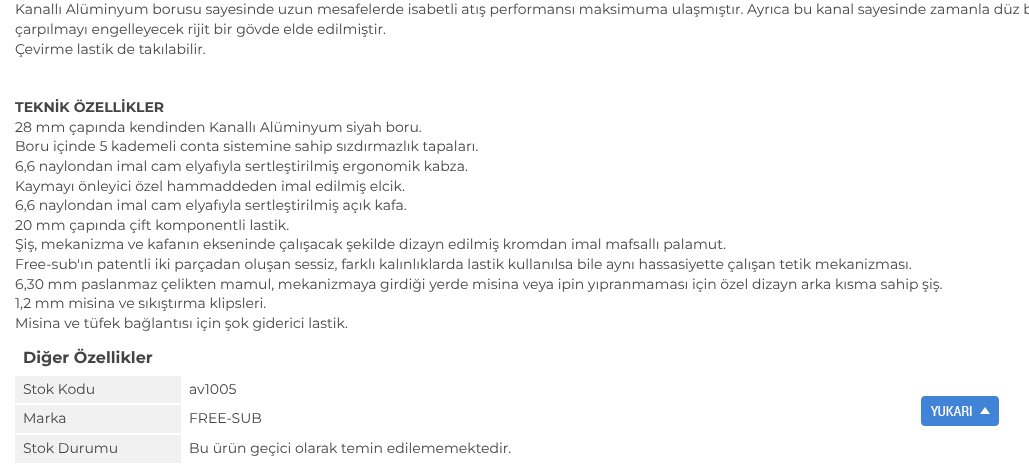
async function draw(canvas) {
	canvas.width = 1029;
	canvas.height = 476;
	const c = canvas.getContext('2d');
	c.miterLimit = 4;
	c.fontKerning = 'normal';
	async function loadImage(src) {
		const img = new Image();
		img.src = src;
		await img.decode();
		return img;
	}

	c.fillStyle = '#fff';
	c.fillRect(0, 0, 1029, 476);
	c.font = '14px Montserrat';
	c.fillStyle = '#444';
	for (const [text, x, y] of [
		['Kanallı Alüminyum borusu sayesinde uzun mesafelerde isabetli atış performansı maksimuma ulaşmıştır. Ayrıca bu kanal sayesinde zamanla düz b', 15, 14],
		['çarpılmayı engelleyecek rijit bir gövde elde edilmiştir.', 15, 34],
		['Çevirme lastik de takılabilir.', 15, 54],
	]) {
		c.fillText(text, x, y);
	}
	c.font = 'bold 14px Montserrat';
	c.fillText('TEKNİK ÖZELLİKLER', 15, 112);
	c.font = '14px Montserrat';
	for (const [text, x, y] of [
		['28 mm çapında kendinden Kanallı Alüminyum siyah boru.', 15, 132],
		['Boru içinde 5 kademeli conta sistemine sahip sızdırmazlık tapaları.', 15, 151],
		['6,6 naylondan imal cam elyafıyla sertleştirilmiş ergonomik kabza.', 15, 171],
		['Kaymayı önleyici özel hammaddeden imal edilmiş elcik.', 15, 191],
		['6,6 naylondan imal cam elyafıyla sertleştirilmiş açık kafa.', 15, 210],
		['20 mm çapında çift komponentli lastik.', 15, 230],
		['Şiş, mekanizma ve kafanın ekseninde çalışacak şekilde dizayn edilmiş kromdan imal mafsallı palamut.', 15, 249],
		['Free-sub\'ın patentli iki parçadan oluşan sessiz, farklı kalınlıklarda lastik kullanılsa bile aynı hassasiyette çalışan tetik mekanizması.', 15, 269],
		['6,30 mm paslanmaz çelikten mamul, mekanizmaya girdiği yerde misina veya ipin yıpranmaması için özel dizayn arka kısma sahip şiş.', 15, 289],
		['1,2 mm misina ve sıkıştırma klipsleri.', 15, 308],
		['Misina ve tüfek bağlantısı için şok giderici lastik.', 15, 328],
	]) {
		c.fillText(text, x, y);
	}
	c.font = 'bold 16px Montserrat';
	c.fillText('Diğer Özellikler', 23, 363);
	c.fillStyle = '#f1f1f1';
	c.fillRect(15, 376, 166, 27);
	c.font = '14px Montserrat';
	c.fillStyle = '#444';
	c.fillText('Stok Kodu', 23, 394);
	c.fillText('av1005', 189, 394);
	c.fillStyle = '#f1f1f1';
	c.fillRect(15, 405, 166, 28);
	c.fillStyle = '#444';
	c.fillText('Marka', 23, 423);
	c.fillText('FREE-SUB', 189, 423);
	c.fillStyle = '#f1f1f1';
	c.fillRect(15, 435, 166, 28);
	c.fillStyle = '#444';
	c.fillText('Stok Durumu', 23, 453);
	c.fillText('Bu ürün geçici olarak temin edilememektedir.', 189, 453);
	c.drawImage(await loadImage('img1.png'), 921, 396, 78, 30);
}

draw(document.querySelector('canvas'));
